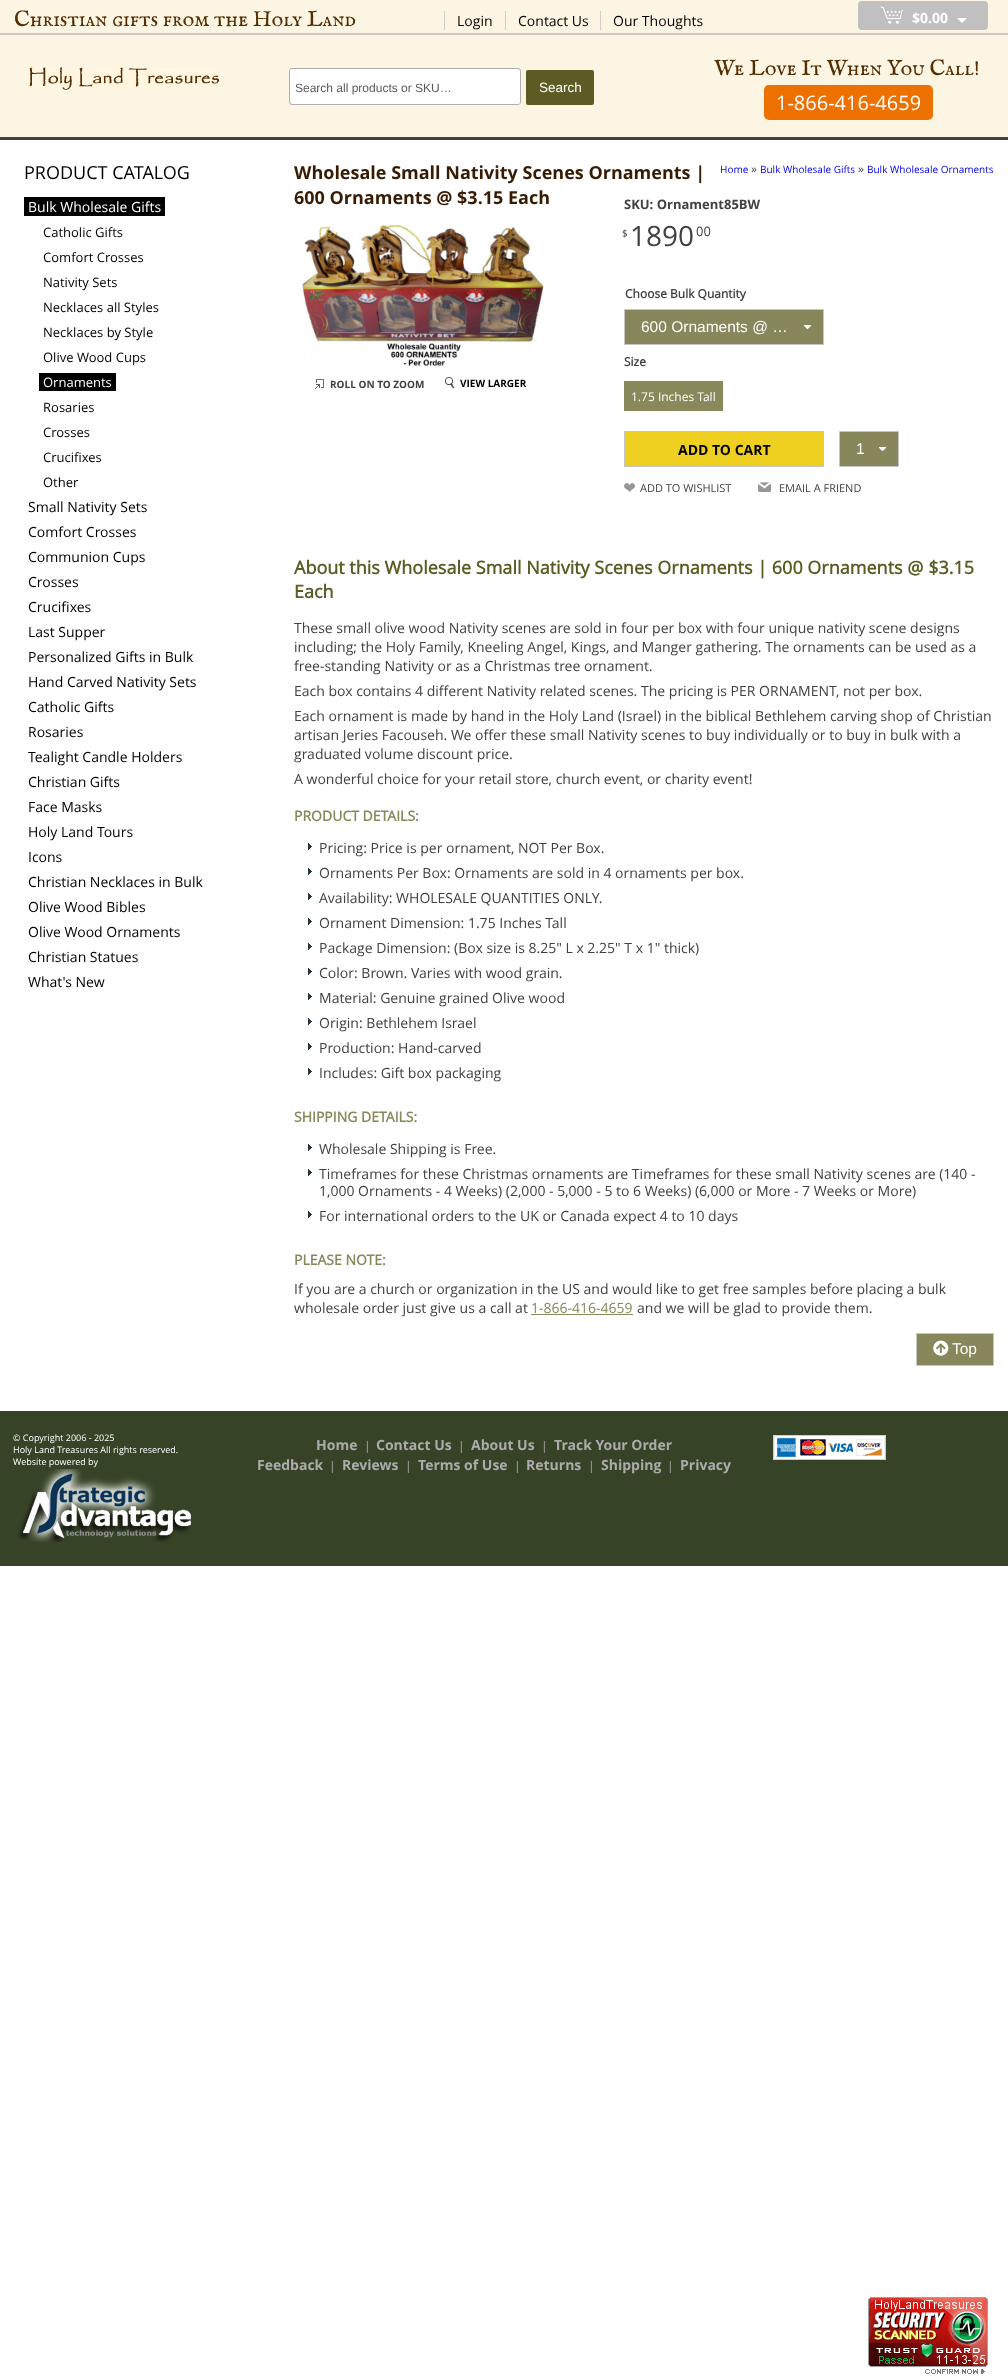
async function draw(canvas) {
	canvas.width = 1008;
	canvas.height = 2379;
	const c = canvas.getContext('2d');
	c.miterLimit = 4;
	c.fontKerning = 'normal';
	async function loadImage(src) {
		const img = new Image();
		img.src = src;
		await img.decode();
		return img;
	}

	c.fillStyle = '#fff';
	c.fillRect(0, 0, 1008, 2379);
	for (const [x, y, w, h, color] of [
		[0, 0, 1008, 137, '#fdf5e3'],
		[0, 137, 1008, 3, '#414141'],
		[0, 33, 1008, 2, '#cac6c3'],
	]) {
		c.fillStyle = color;
		c.fillRect(x, y, w, h);
	}
	c.font = '22px IM FELL English SC';
	c.fillStyle = '#532e02';
	c.fillText('Christian gifts from the Holy Land', 14, 26);
	c.fillStyle = '#cecece';
	c.fillRect(444, 11, 1, 19);
	c.font = '14px Open Sans';
	c.fillStyle = '#000';
	c.fillText('Login', 457, 26);
	c.fillStyle = '#cecece';
	c.fillRect(505, 11, 1, 19);
	c.fillStyle = '#000';
	c.fillText('Contact Us', 518, 26);
	c.fillStyle = '#cecece';
	c.fillRect(600, 11, 1, 19);
	c.fillStyle = '#000';
	c.fillText('Our Thoughts', 613, 26);
	c.fillStyle = '#c0c0c0';
	c.beginPath();
	c.roundRect(858, 1, 130, 29, 4);
	c.fill();
	c.drawImage(await loadImage('img1.png'), 880, 6, 23, 18);
	c.font = 'bold 14px Open Sans';
	c.fillStyle = '#fff';
	c.fillText('$0.00', 912, 23);
	c.beginPath();
	c.moveTo(957, 18);
	c.lineTo(967, 18);
	c.lineTo(962, 23);
	c.closePath();
	c.fill();
	c.drawImage(await loadImage('img2.png'), 29, 67, 190, 23);
	c.beginPath();
	c.roundRect(289.5, 68.5, 231, 36, 2.5);
	c.fill();
	c.strokeStyle = '#afafaf';
	c.stroke();
	c.font = '12px Liberation Sans';
	c.fillStyle = '#5a5a5a';
	c.fillText('Search all products or SKU…', 295, 92);
	c.fillStyle = '#5b5b23';
	c.beginPath();
	c.roundRect(526, 70, 68, 35, 2);
	c.fill();
	c.font = '13.5px Liberation Sans';
	c.fillStyle = '#fff';
	c.fillText('Search', 539, 92);
	c.font = '22px IM FELL English SC';
	c.fillStyle = '#532e02';
	c.fillText('We Love It When You Call!', 714, 75);
	c.fillStyle = '#ed7100';
	c.beginPath();
	c.roundRect(764, 85, 169, 35, 5);
	c.fill();
	c.font = '20px Open Sans';
	c.fillStyle = '#fff';
	c.fillText('1-866-416-4659', 776, 110);
	c.font = '18px Open Sans';
	c.fillStyle = '#000';
	c.fillText('PRODUCT CATALOG', 24, 179);
	c.fillRect(24, 197, 141, 19);
	c.font = '14px Open Sans';
	c.fillStyle = '#fff';
	c.fillText('Bulk Wholesale Gifts', 28, 212);
	c.font = '13px Open Sans';
	c.fillStyle = '#000';
	for (const [text, x, y] of [
		['Catholic Gifts', 43, 237],
		['Comfort Crosses', 43, 262],
		['Nativity Sets', 43, 287],
		['Necklaces all Styles', 43, 312],
		['Necklaces by Style', 43, 337],
		['Olive Wood Cups', 43, 362],
	]) {
		c.fillText(text, x, y);
	}
	c.fillRect(39, 373, 77, 18);
	c.fillStyle = '#fff';
	c.fillText('Ornaments', 43, 387);
	c.fillStyle = '#000';
	for (const [text, x, y] of [
		['Rosaries', 43, 412],
		['Crosses', 43, 437],
		['Crucifixes', 43, 462],
		['Other', 43, 487],
	]) {
		c.fillText(text, x, y);
	}
	c.font = '14px Open Sans';
	for (const [text, x, y] of [
		['Small Nativity Sets', 28, 512],
		['Comfort Crosses', 28, 537],
		['Communion Cups', 28, 562],
		['Crosses', 28, 587],
		['Crucifixes', 28, 612],
		['Last Supper', 28, 637],
		['Personalized Gifts in Bulk', 28, 662],
		['Hand Carved Nativity Sets', 28, 687],
		['Catholic Gifts', 28, 712],
		['Rosaries', 28, 737],
		['Tealight Candle Holders', 28, 762],
		['Christian Gifts', 28, 787],
		['Face Masks', 28, 812],
		['Holy Land Tours', 28, 837],
		['Icons', 28, 862],
		['Christian Necklaces in Bulk', 28, 887],
		['Olive Wood Bibles', 28, 912],
		['Olive Wood Ornaments', 28, 937],
		['Christian Statues', 28, 962],
		['What\'s New', 28, 987],
	]) {
		c.fillText(text, x, y);
	}
	c.font = 'bold 18px Open Sans';
	c.fillStyle = '#371c03';
	c.fillText('Wholesale Small Nativity Scenes Ornaments |', 294, 179);
	c.fillText('600 Ornaments @ $3.15 Each', 294, 204);
	c.font = 'bold 13px Open Sans';
	c.fillStyle = '#414141';
	c.fillText('SKU: Ornament85BW', 624, 209);
	c.font = '10px Open Sans';
	c.fillText('$', 622, 237);
	c.font = '28px Open Sans';
	c.fillText('1890', 630, 246);
	c.font = '13px Open Sans';
	c.fillText('00', 696, 236);
	c.font = 'bold 12px "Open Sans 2"';
	c.fillText('Choose Bulk Quantity', 625, 298);
	c.fillStyle = '#87875b';
	c.beginPath();
	c.rect(624.5, 309.5, 199, 35);
	c.fill();
	c.strokeStyle = '#c5c5c5';
	c.stroke();
	c.font = '15.5px Liberation Sans';
	c.fillStyle = '#fff';
	c.fillText('600 Ornaments @ …', 641, 332);
	c.drawImage(await loadImage('img3.png'), 804, 325, 7, 4);
	c.font = 'bold 12px "Open Sans 2"';
	c.fillStyle = '#414141';
	c.fillText('Size', 624, 366);
	c.fillStyle = '#88885b';
	c.fillRect(624, 381, 99, 30);
	c.font = '12px Open Sans';
	c.fillStyle = '#fff';
	c.fillText('1.75 Inches Tall', 631, 401);
	c.fillStyle = '#efcf1f';
	c.beginPath();
	c.rect(624.5, 431.5, 199, 35);
	c.fill();
	c.stroke();
	c.font = 'bold 14px Open Sans';
	c.fillStyle = '#000';
	c.fillText('ADD TO CART', 678, 455);
	c.fillStyle = '#87875b';
	c.beginPath();
	c.rect(839.5, 431.5, 59, 35);
	c.fill();
	c.stroke();
	c.font = '15.5px Liberation Sans';
	c.fillStyle = '#fff';
	c.fillText('1', 856, 454);
	c.drawImage(await loadImage('img3.png'), 879, 447, 7, 4);
	c.drawImage(await loadImage('img4.png'), 624, 483, 11, 9);
	c.font = '11px Open Sans';
	c.fillStyle = '#414141';
	c.fillText('ADD TO WISHLIST', 640, 492);
	c.drawImage(await loadImage('img5.png'), 758, 482, 13, 10);
	c.fillText('EMAIL A FRIEND', 779, 492);
	c.drawImage(await loadImage('img6.png'), 302, 224, 242, 143);
	c.drawImage(await loadImage('img7.png'), 315, 379, 9, 10);
	c.font = 'bold 10px Open Sans';
	c.fillText('ROLL ON TO ZOOM', 330, 388);
	c.drawImage(await loadImage('img8.png'), 445, 377, 10, 12);
	c.fillStyle = '#000';
	c.fillText('VIEW LARGER', 460, 387);
	c.font = '10px Open Sans';
	c.fillStyle = '#00e';
	c.fillText('Home', 720, 173);
	c.font = '12px Open Sans';
	c.fillStyle = '#414141';
	c.fillText('»', 751, 173);
	c.font = '10px Open Sans';
	c.fillStyle = '#00e';
	c.fillText('Bulk Wholesale Gifts', 760, 173);
	c.font = '12px Open Sans';
	c.fillStyle = '#414141';
	c.fillText('»', 858, 173);
	c.font = '10px Open Sans';
	c.fillStyle = '#00e';
	c.fillText('Bulk Wholesale Ornaments', 867, 173);
	c.font = 'bold 18px "Open Sans 2"';
	c.fillStyle = '#5b5b23';
	c.fillText('About this Wholesale Small Nativity Scenes Ornaments | 600 Ornaments @ $3.15', 294, 574);
	c.fillText('Each', 294, 598);
	c.font = '14px Open Sans';
	c.fillStyle = '#414141';
	for (const [text, x, y] of [
		['These small olive wood Nativity scenes are sold in four per box with four unique nativity scene designs', 294, 633],
		['including; the Holy Family, Kneeling Angel, Kings, and Manger gathering. The ornaments can be used as a', 294, 652],
		['free-standing Nativity or as a Christmas tree ornament.', 294, 671],
		['Each box contains 4 different Nativity related scenes. The pricing is PER ORNAMENT, not per box.', 294, 696],
		['Each ornament is made by hand in the Holy Land (Israel) in the biblical Bethlehem carving shop of Christian', 294, 721],
		['artisan Jeries Facouseh. We offer these small Nativity scenes to buy individually or to buy in bulk with a', 294, 740],
		['graduated volume discount price.', 294, 759],
		['A wonderful choice for your retail store, church event, or charity event!', 294, 784],
	]) {
		c.fillText(text, x, y);
	}
	c.font = 'bold 14px "Open Sans 2"';
	c.fillStyle = '#88885b';
	c.fillText('PRODUCT DETAILS:', 294, 821);
	c.drawImage(await loadImage('img9.png'), 308, 843, 4, 7);
	c.font = '14px Open Sans';
	c.fillStyle = '#414141';
	c.fillText('Pricing: Price is per ornament, NOT Per Box.', 319, 853);
	c.drawImage(await loadImage('img9.png'), 308, 868, 4, 7);
	c.fillText('Ornaments Per Box: Ornaments are sold in 4 ornaments per box.', 319, 878);
	c.drawImage(await loadImage('img9.png'), 308, 893, 4, 7);
	c.fillText('Availability: WHOLESALE QUANTITIES ONLY.', 319, 903);
	c.drawImage(await loadImage('img9.png'), 308, 918, 4, 7);
	c.fillText('Ornament Dimension: 1.75 Inches Tall', 319, 928);
	c.drawImage(await loadImage('img9.png'), 308, 943, 4, 7);
	c.fillText('Package Dimension: (Box size is 8.25" L x 2.25" T x 1" thick)', 319, 953);
	c.drawImage(await loadImage('img9.png'), 308, 968, 4, 7);
	c.fillText('Color: Brown. Varies with wood grain.', 319, 978);
	c.drawImage(await loadImage('img9.png'), 308, 993, 4, 7);
	c.fillText('Material: Genuine grained Olive wood', 319, 1003);
	c.drawImage(await loadImage('img9.png'), 308, 1018, 4, 7);
	c.fillText('Origin: Bethlehem Israel', 319, 1028);
	c.drawImage(await loadImage('img9.png'), 308, 1043, 4, 7);
	c.fillText('Production: Hand-carved', 319, 1053);
	c.drawImage(await loadImage('img9.png'), 308, 1068, 4, 7);
	c.fillText('Includes: Gift box packaging', 319, 1078);
	c.font = 'bold 14px "Open Sans 2"';
	c.fillStyle = '#88885b';
	c.fillText('SHIPPING DETAILS:', 294, 1122);
	c.drawImage(await loadImage('img9.png'), 308, 1144, 4, 7);
	c.font = '14px Open Sans';
	c.fillStyle = '#414141';
	c.fillText('Wholesale Shipping is Free.', 319, 1154);
	c.drawImage(await loadImage('img9.png'), 308, 1169, 4, 7);
	c.fillText('Timeframes for these Christmas ornaments are Timeframes for these small Nativity scenes are (140 -', 319, 1179);
	c.fillText('1,000 Ornaments - 4 Weeks) (2,000 - 5,000 - 5 to 6 Weeks) (6,000 or More - 7 Weeks or More)', 319, 1196);
	c.drawImage(await loadImage('img9.png'), 308, 1211, 4, 7);
	c.fillText('For international orders to the UK or Canada expect 4 to 10 days', 319, 1221);
	c.font = 'bold 14px "Open Sans 2"';
	c.fillStyle = '#88885b';
	c.fillText('PLEASE NOTE:', 294, 1265);
	c.font = '14px Open Sans';
	c.fillStyle = '#414141';
	c.fillText('If you are a church or organization in the US and would like to get free samples before placing a bulk', 294, 1294);
	c.fillText('wholesale order just give us a call at', 294, 1313);
	c.fillStyle = '#88885b';
	c.fillText('1-866-416-4659', 531, 1313);
	c.fillRect(531, 1314, 102, 1);
	c.fillStyle = '#414141';
	c.fillText('and we will be glad to provide them.', 637, 1313);
	c.fillStyle = '#87875b';
	c.beginPath();
	c.rect(916.5, 1333.5, 77, 32);
	c.fill();
	c.stroke();
	c.drawImage(await loadImage('img10.png'), 933, 1340, 16, 16);
	c.font = '15.5px Liberation Sans';
	c.fillStyle = '#fff';
	c.fillText('Top', 952, 1354);
	c.fillStyle = '#364327';
	c.fillRect(0, 1411, 1008, 155);
	c.font = '9px Open Sans';
	c.fillStyle = '#fff';
	for (const [text, x, y] of [
		['© Copyright 2006 - 2025', 13, 1441],
		['Holy Land Treasures All rights reserved.', 13, 1453],
		['Website powered by', 13, 1465],
	]) {
		c.fillText(text, x, y);
	}
	c.drawImage(await loadImage('img11.png'), 18, 1469, 173, 73);
	c.font = 'bold 14px Open Sans';
	c.fillStyle = '#ababab';
	c.fillText('Home', 316, 1450);
	c.font = '12px Open Sans';
	c.fillText('|', 364, 1450);
	c.font = 'bold 14px Open Sans';
	c.fillText('Contact Us', 376, 1450);
	c.font = '12px Open Sans';
	c.fillText('|', 458, 1450);
	c.font = 'bold 14px Open Sans';
	c.fillText('About Us', 471, 1450);
	c.font = '12px Open Sans';
	c.fillText('|', 541, 1450);
	c.font = 'bold 14px Open Sans';
	c.fillText('Track Your Order', 554, 1450);
	c.fillText('Feedback', 257, 1470);
	c.font = '12px Open Sans';
	c.fillText('|', 329, 1470);
	c.font = 'bold 14px Open Sans';
	c.fillText('Reviews', 342, 1470);
	c.font = '12px Open Sans';
	c.fillText('|', 405, 1470);
	c.font = 'bold 14px Open Sans';
	c.fillText('Terms of Use', 418, 1470);
	c.font = '12px Open Sans';
	c.fillText('|', 514, 1470);
	c.font = 'bold 14px Open Sans';
	c.fillText('Returns', 526, 1470);
	c.font = '12px Open Sans';
	c.fillText('|', 588, 1470);
	c.font = 'bold 14px Open Sans';
	c.fillText('Shipping', 601, 1470);
	c.font = '12px Open Sans';
	c.fillText('|', 667, 1470);
	c.font = 'bold 14px Open Sans';
	c.fillText('Privacy', 680, 1470);
	c.drawImage(await loadImage('img12.png'), 868, 2297, 120, 77);
	c.drawImage(await loadImage('img13.png'), 773, 1435, 113, 25);
}

draw(document.querySelector('canvas'));
